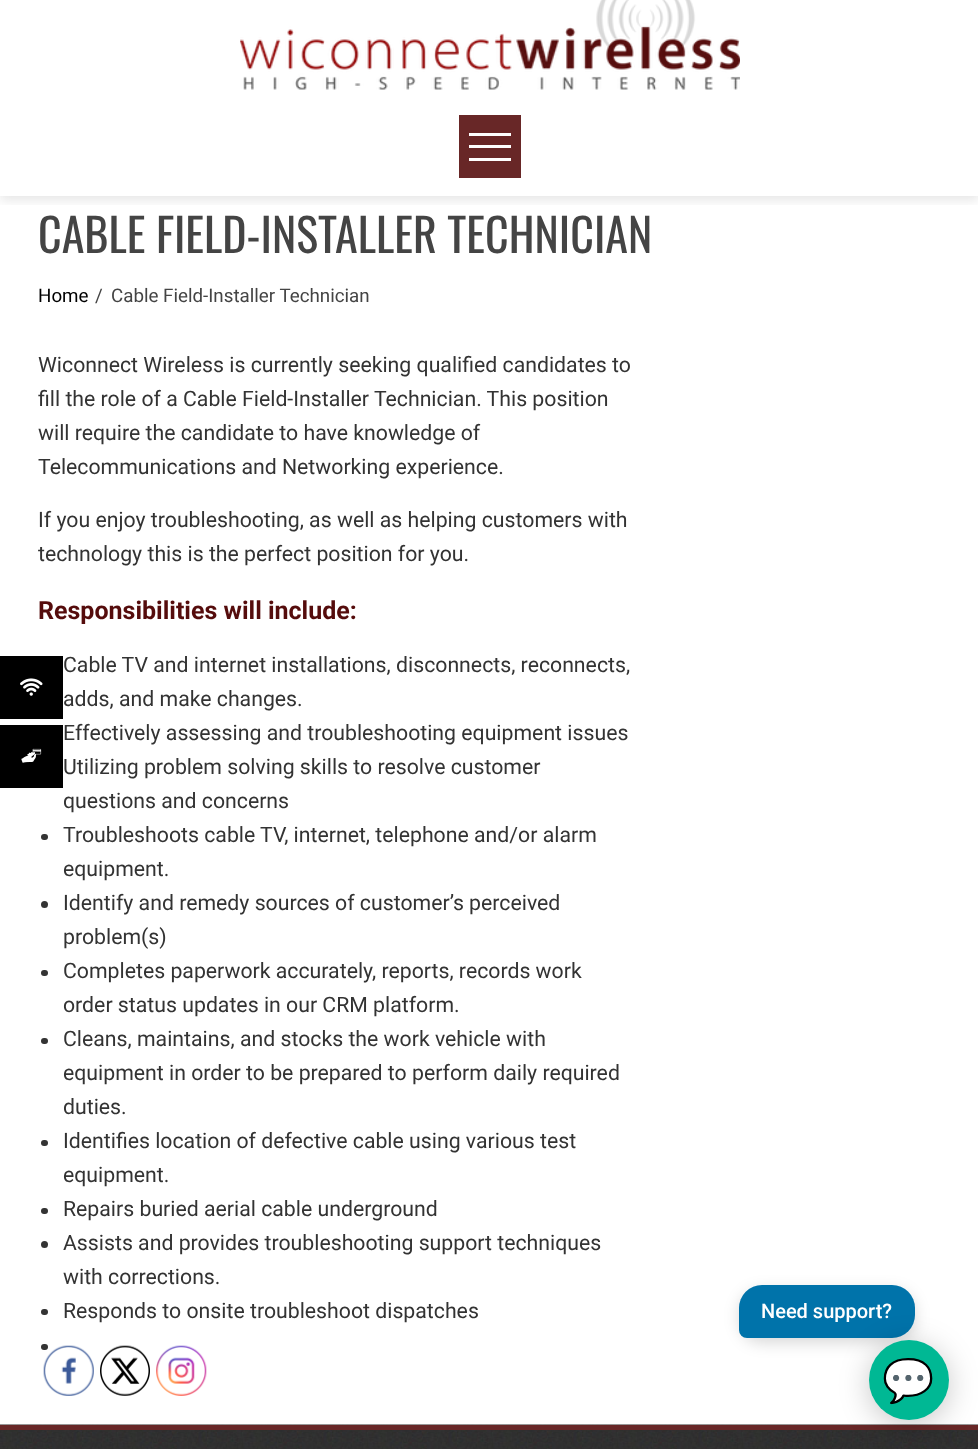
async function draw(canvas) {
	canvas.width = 978;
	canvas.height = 1449;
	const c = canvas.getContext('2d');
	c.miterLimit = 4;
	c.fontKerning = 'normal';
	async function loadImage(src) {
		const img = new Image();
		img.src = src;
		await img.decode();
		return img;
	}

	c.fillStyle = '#fff';
	c.fillRect(0, 0, 978, 1449);
	c.fillStyle = '#000';
	c.fillRect(0, 656, 63, 63);
	c.drawImage(await loadImage('img1.png'), 20, 678, 23, 18);
	c.fillRect(0, 725, 63, 63);
	c.drawImage(await loadImage('img2.png'), 21, 748, 21, 15);
	c.save();
	c.beginPath();
	c.rect(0, 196, 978, 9);
	c.clip();
	c.fillStyle = '#0000001a';
	c.filter = 'blur(6px)';
	c.beginPath();
	c.rect(0, -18, 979, 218);
	c.fill();
	c.filter = 'none';
	c.restore();
	c.drawImage(await loadImage('img3.png'), 240, 0, 500, 90);
	for (const [x, y, w, h, color] of [
		[459, 115, 62, 63, '#682727'],
		[469, 133, 42, 3, '#fff'],
		[469, 158, 42, 3, '#fff'],
		[469, 145, 42, 3, '#fff'],
	]) {
		c.fillStyle = color;
		c.fillRect(x, y, w, h);
	}
	c.font = '46px Oswald';
	c.fillStyle = '#444';
	c.fillText('CABLE FIELD-INSTALLER TECHNICIAN', 38, 253);
	c.font = '18.75px Roboto';
	c.fillStyle = '#000';
	c.fillText('Home', 38, 302);
	c.fillStyle = '#444';
	c.fillText('/', 95, 302);
	c.fillText('Cable Field-Installer Technician', 111, 302);
	c.font = '21.25px Roboto';
	c.fillStyle = '#333';
	for (const [text, x, y] of [
		['Wiconnect Wireless is currently seeking qualified candidates to', 38, 372],
		['fill the role of a Cable Field-Installer Technician. This position', 38, 406],
		['will require the candidate to have knowledge of', 38, 440],
		['Telecommunications and Networking experience.', 38, 474],
		['If you enjoy troubleshooting, as well as helping customers with', 38, 527],
		['technology this is the perfect position for you.', 38, 561],
	]) {
		c.fillText(text, x, y);
	}
	c.font = 'bold 25px Roboto';
	c.fillStyle = '#550c0c';
	c.fillText('Responsibilities will include:', 38, 619);
	c.font = '21.25px Roboto';
	c.fillStyle = '#333';
	for (const [text, x, y] of [
		['Cable TV and internet installations, disconnects, reconnects,', 63, 672],
		['adds, and make changes.', 63, 706],
		['Effectively assessing and troubleshooting equipment issues', 63, 740],
		['Utilizing problem solving skills to resolve customer', 63, 774],
		['questions and concerns', 63, 808],
	]) {
		c.fillText(text, x, y);
	}
	c.beginPath();
	c.roundRect(41, 834, 7, 6, 3);
	c.fill();
	c.fillText('Troubleshoots cable TV, internet, telephone and/or alarm', 63, 842);
	c.fillText('equipment.', 63, 876);
	c.beginPath();
	c.arc(44.5, 904.5, 3.5, 0, 2 * Math.PI);
	c.fill();
	c.fillText('Identify and remedy sources of customer’s perceived', 63, 910);
	c.fillText('problem(s)', 63, 944);
	c.beginPath();
	c.roundRect(41, 970, 7, 6, 3);
	c.fill();
	c.fillText('Completes paperwork accurately, reports, records work', 63, 978);
	c.fillText('order status updates in our CRM platform.', 63, 1012);
	c.beginPath();
	c.roundRect(41, 1038, 7, 6, 3);
	c.fill();
	for (const [text, x, y] of [
		['Cleans, maintains, and stocks the work vehicle with', 63, 1046],
		['equipment in order to be prepared to perform daily required', 63, 1080],
		['duties.', 63, 1114],
	]) {
		c.fillText(text, x, y);
	}
	c.beginPath();
	c.roundRect(41, 1140, 7, 6, 3);
	c.fill();
	c.fillText('Identifies location of defective cable using various test', 63, 1148);
	c.fillText('equipment.', 63, 1182);
	c.beginPath();
	c.roundRect(41, 1208, 7, 6, 3);
	c.fill();
	c.fillText('Repairs buried aerial cable underground', 63, 1216);
	c.beginPath();
	c.arc(44.5, 1244.5, 3.5, 0, 2 * Math.PI);
	c.fill();
	c.fillText('Assists and provides troubleshooting support techniques', 63, 1250);
	c.fillText('with corrections.', 63, 1284);
	c.beginPath();
	c.roundRect(41, 1309, 7, 6, 3);
	c.fill();
	c.fillText('Responds to onsite troubleshoot dispatches', 63, 1318);
	c.beginPath();
	c.roundRect(41, 1344, 7, 6, 3);
	c.fill();
	c.drawImage(await loadImage('img4.png'), 0, 1424, 978, 25);
	c.fillStyle = '#682727';
	c.fillRect(0, 1425, 978, 5);
	c.fillStyle = '#00000026';
	c.filter = 'blur(7.5px)';
	c.beginPath();
	c.roundRect(739, 1290, 176, 53, 23);
	c.fill();
	c.filter = 'none';
	c.fillStyle = '#0073aa';
	c.beginPath();
	c.roundRect(739, 1285, 176, 53, [23, 23, 23, 8]);
	c.fill();
	c.font = '500 20px Roboto';
	c.fillStyle = '#fff';
	c.fillText('Need support?', 761, 1318);
	c.fillStyle = '#00000038';
	c.filter = 'blur(15px)';
	c.beginPath();
	c.roundRect(869, 1345, 80, 80, 40);
	c.fill();
	c.filter = 'none';
	c.fillStyle = '#00b894';
	c.beginPath();
	c.arc(909, 1380, 40, 0, 2 * Math.PI);
	c.fill();
	c.font = '42px Noto Color Emoji';
	c.fillStyle = '#fff';
	c.fillText('💬', 882, 1395);
	c.drawImage(await loadImage('img5.png'), 43, 1345, 51, 51);
	c.drawImage(await loadImage('img6.png'), 100, 1345, 50, 51);
	c.drawImage(await loadImage('img7.png'), 156, 1345, 51, 51);
}

draw(document.querySelector('canvas'));
